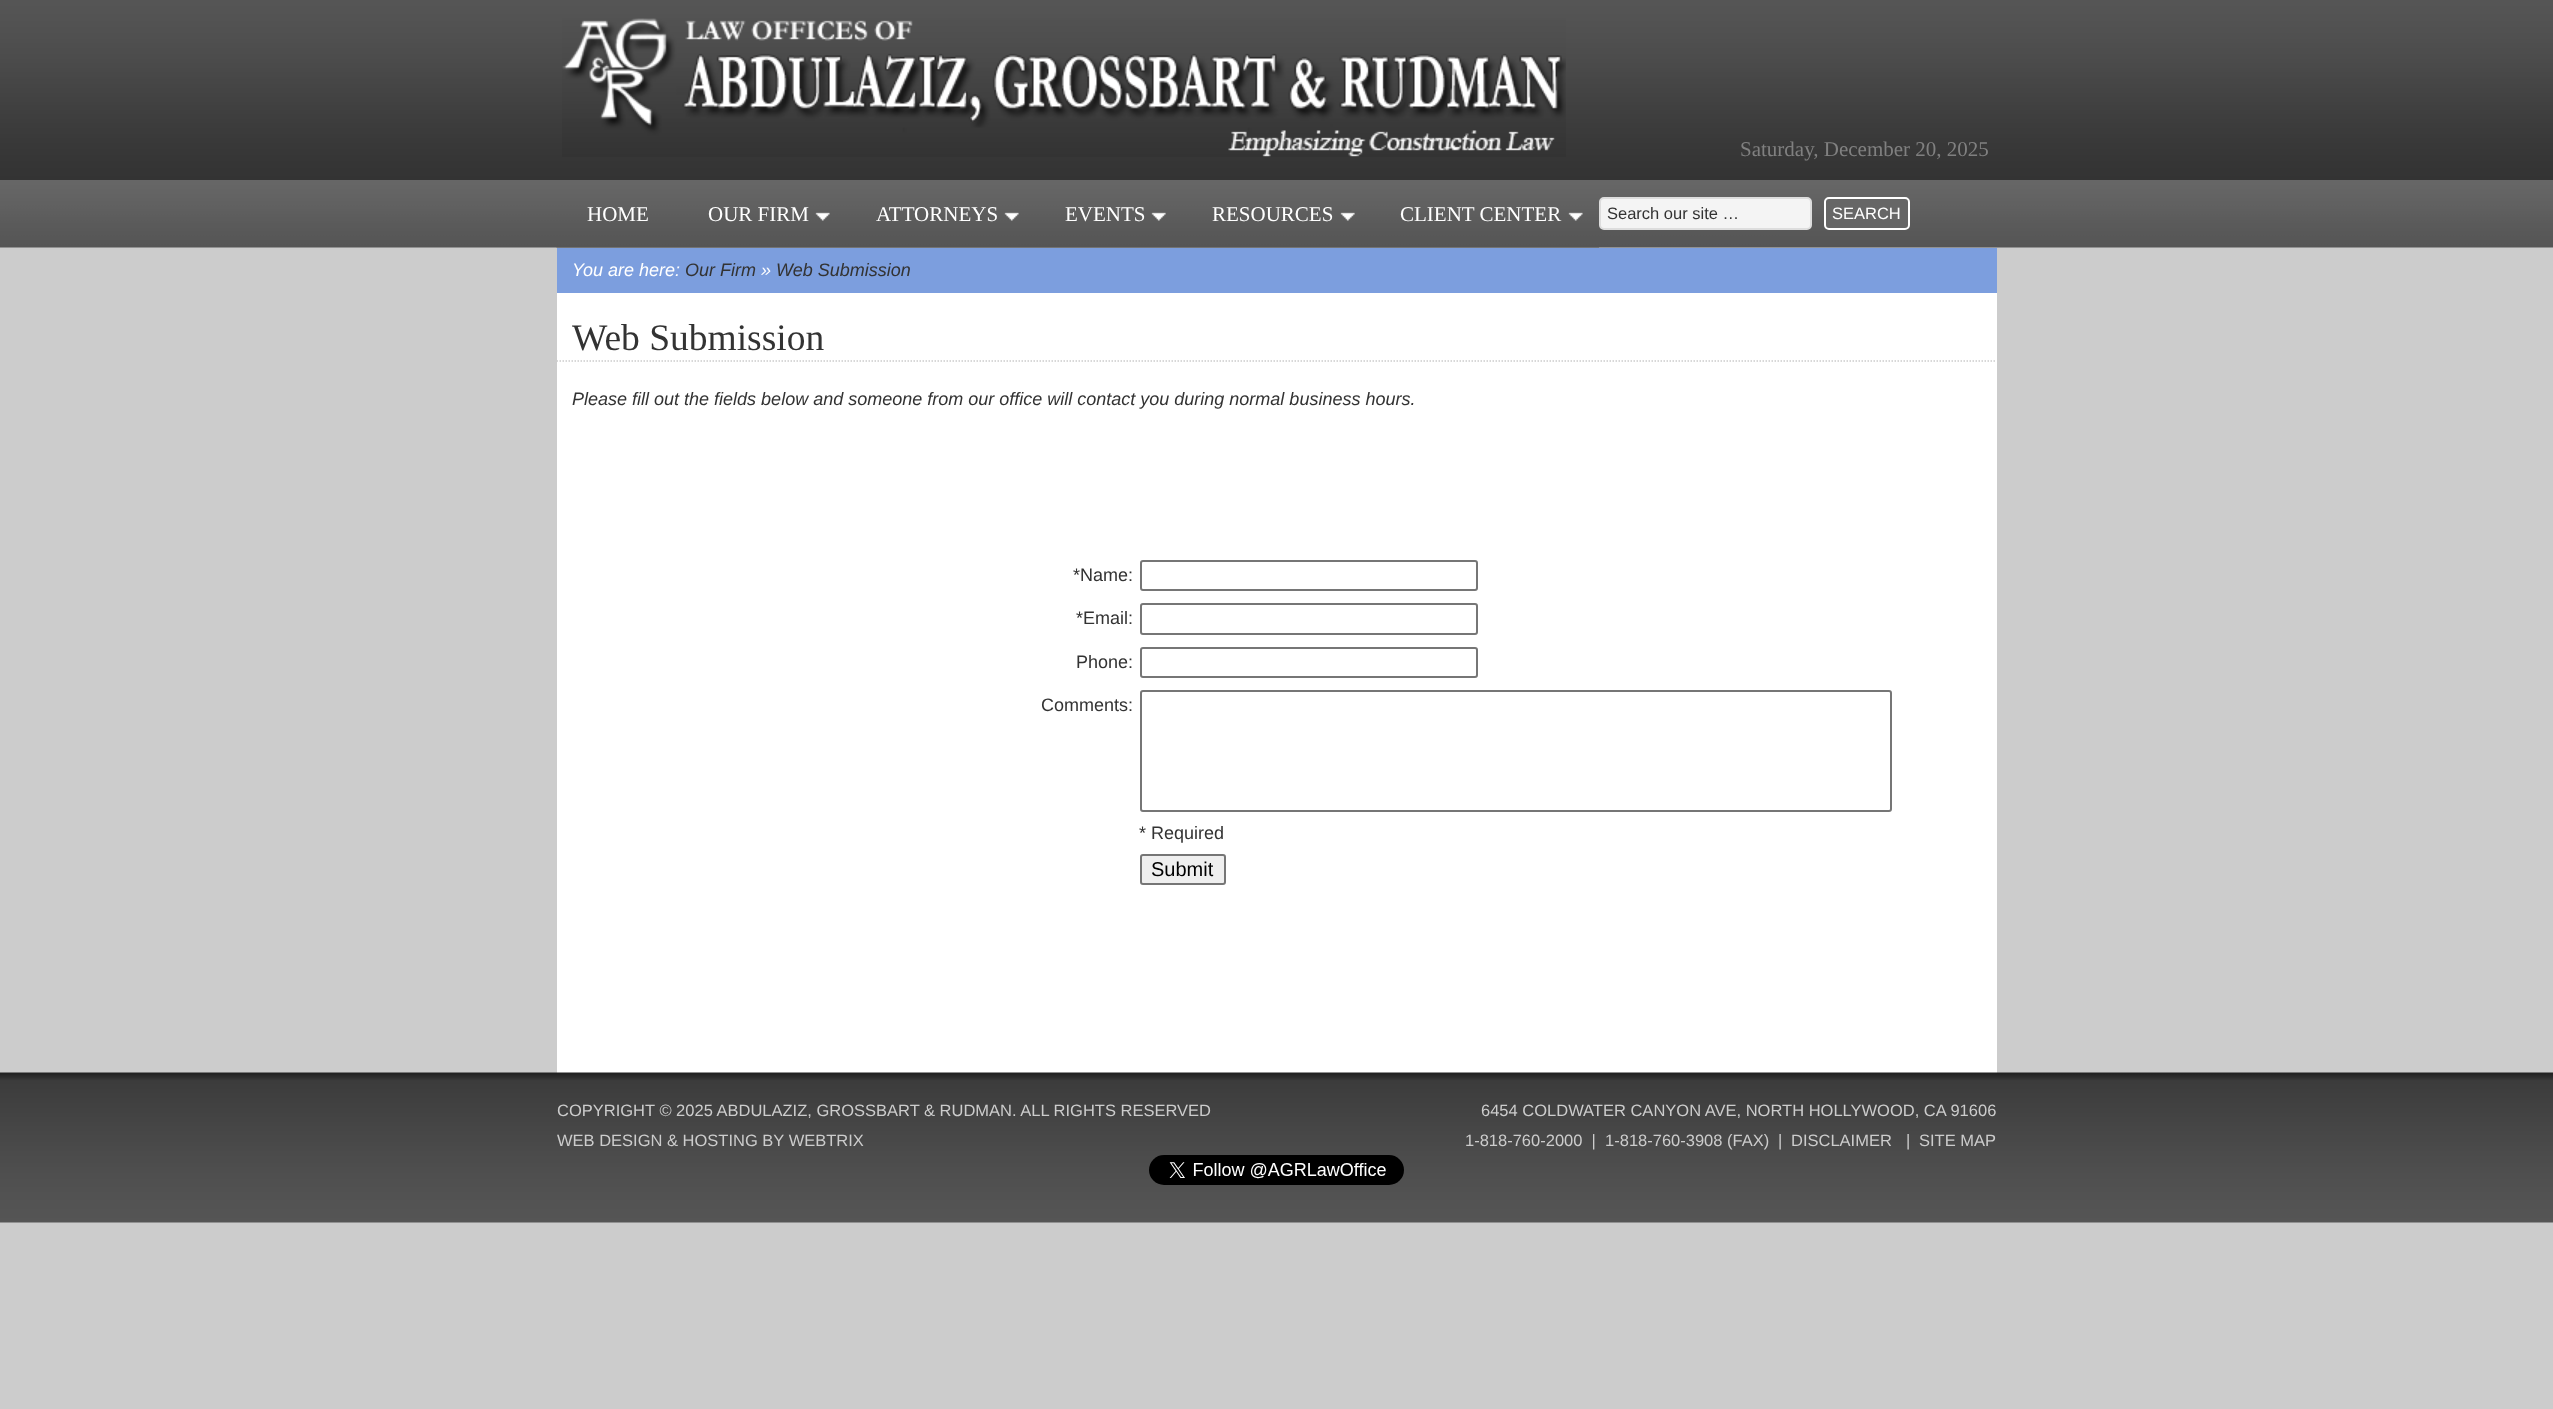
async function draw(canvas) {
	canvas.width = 2553;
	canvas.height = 1409;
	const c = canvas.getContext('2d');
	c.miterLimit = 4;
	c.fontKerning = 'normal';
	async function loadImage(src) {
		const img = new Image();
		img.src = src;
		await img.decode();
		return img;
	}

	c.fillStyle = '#ccc';
	c.fillRect(0, 0, 2553, 1409);
	c.drawImage(await loadImage('img1.png'), 0, 0, 2553, 180);
	c.drawImage(await loadImage('img2.png'), 562, 18, 1004, 139);
	c.font = '21px Liberation Serif';
	c.fillStyle = '#808080';
	c.fillText('Saturday, December 20, 2025', 1740, 156);
	c.drawImage(await loadImage('img3.png'), 0, 180, 2553, 68);
	c.drawImage(await loadImage('img4.png'), 556, 247, 122, 1);
	c.fillStyle = '#fff';
	c.fillText('HOME', 587, 221);
	c.fillStyle = '#737373';
	c.fillRect(678, 247, 921, 1);
	c.fillStyle = '#fff';
	c.fillText('OUR FIRM', 708, 221);
	c.drawImage(await loadImage('img5.png'), 815, 212, 15, 9);
	c.fillText('ATTORNEYS', 876, 221);
	c.drawImage(await loadImage('img5.png'), 1004, 212, 15, 9);
	c.fillText('EVENTS', 1065, 221);
	c.drawImage(await loadImage('img6.png'), 1151, 212, 15, 9);
	c.fillText('RESOURCES', 1212, 221);
	c.drawImage(await loadImage('img6.png'), 1340, 212, 15, 9);
	c.fillText('CLIENT CENTER', 1400, 221);
	c.drawImage(await loadImage('img7.png'), 1568, 212, 15, 9);
	c.fillStyle = '#f4f4f4';
	c.beginPath();
	c.roundRect(1600, 198, 211, 31, 4);
	c.fill();
	c.strokeStyle = '#ddd';
	c.lineWidth = 2;
	c.stroke();
	c.font = '16.5px Liberation Sans';
	c.fillStyle = '#333';
	c.fillText('Search our site …', 1607, 219);
	c.fillStyle = '#666';
	c.beginPath();
	c.roundRect(1825, 198, 84, 31, 4);
	c.fill();
	c.strokeStyle = '#fff';
	c.stroke();
	c.fillStyle = '#fff';
	c.fillText('SEARCH', 1832, 219);
	c.fillRect(557, 293, 1440, 780);
	c.fillStyle = '#7c9ede';
	c.fillRect(557, 248, 1440, 45);
	c.font = 'italic 18px Liberation Sans';
	c.fillStyle = '#fff';
	c.fillText('You are here:', 572, 276);
	c.fillStyle = '#333';
	c.fillText('Our Firm', 685, 276);
	c.fillStyle = '#fff';
	c.fillText('»', 761, 276);
	c.fillStyle = '#333';
	c.fillText('Web Submission', 776, 276);
	c.beginPath();
	c.moveTo(556.5, 361);
	c.lineTo(1996.5, 361);
	c.strokeStyle = '#ccc';
	c.lineWidth = 1.5;
	c.setLineDash([1.5, 1.5]);
	c.stroke();
	c.font = '37.5px Liberation Serif';
	c.fillText('Web Submission', 572, 350);
	c.font = 'italic 18px Liberation Sans';
	c.fillText('Please fill out the fields below and someone from our office will contact you during normal business hours.', 572, 405);
	c.font = '18px Liberation Sans';
	c.fillText('*Name:', 1073, 581);
	c.beginPath();
	c.roundRect(1141, 561, 336, 29, 2);
	c.strokeStyle = '#767676';
	c.lineWidth = 2;
	c.setLineDash([]);
	c.stroke();
	c.fillText('*Email:', 1076, 624);
	c.beginPath();
	c.roundRect(1141, 604, 336, 30, 2);
	c.stroke();
	c.fillText('Phone:', 1076, 668);
	c.beginPath();
	c.roundRect(1141, 648, 336, 29, 2);
	c.stroke();
	c.fillText('Comments:', 1041, 711);
	c.beginPath();
	c.roundRect(1141, 691, 750, 120, 2);
	c.stroke();
	c.fillText('* Required', 1139, 839);
	c.fillStyle = '#efefef';
	c.beginPath();
	c.roundRect(1141, 855, 84, 29, 2);
	c.fill();
	c.stroke();
	c.font = '20px Liberation Sans';
	c.fillStyle = '#000';
	c.fillText('Submit', 1151, 876);
	c.drawImage(await loadImage('img8.png'), 0, 1072, 2553, 151);
	c.font = '16.5px Liberation Sans';
	c.fillStyle = '#ccc';
	for (const [text, x, y] of [
		['COPYRIGHT © 2025 ABDULAZIZ, GROSSBART & RUDMAN. ALL RIGHTS RESERVED', 557, 1116],
		['WEB DESIGN & HOSTING BY WEBTRIX', 557, 1146],
		['6454 COLDWATER CANYON AVE, NORTH HOLLYWOOD, CA 91606', 1481, 1116],
		['1-818-760-2000  |  1-818-760-3908 (FAX)', 1465, 1146],
		['|', 1778, 1146],
		['DISCLAIMER', 1791, 1146],
		['|', 1906, 1146],
		['SITE MAP', 1919, 1146],
	]) {
		c.fillText(text, x, y);
	}
	c.drawImage(await loadImage('img9.png'), 1149, 1155, 255, 30);
}

draw(document.querySelector('canvas'));
